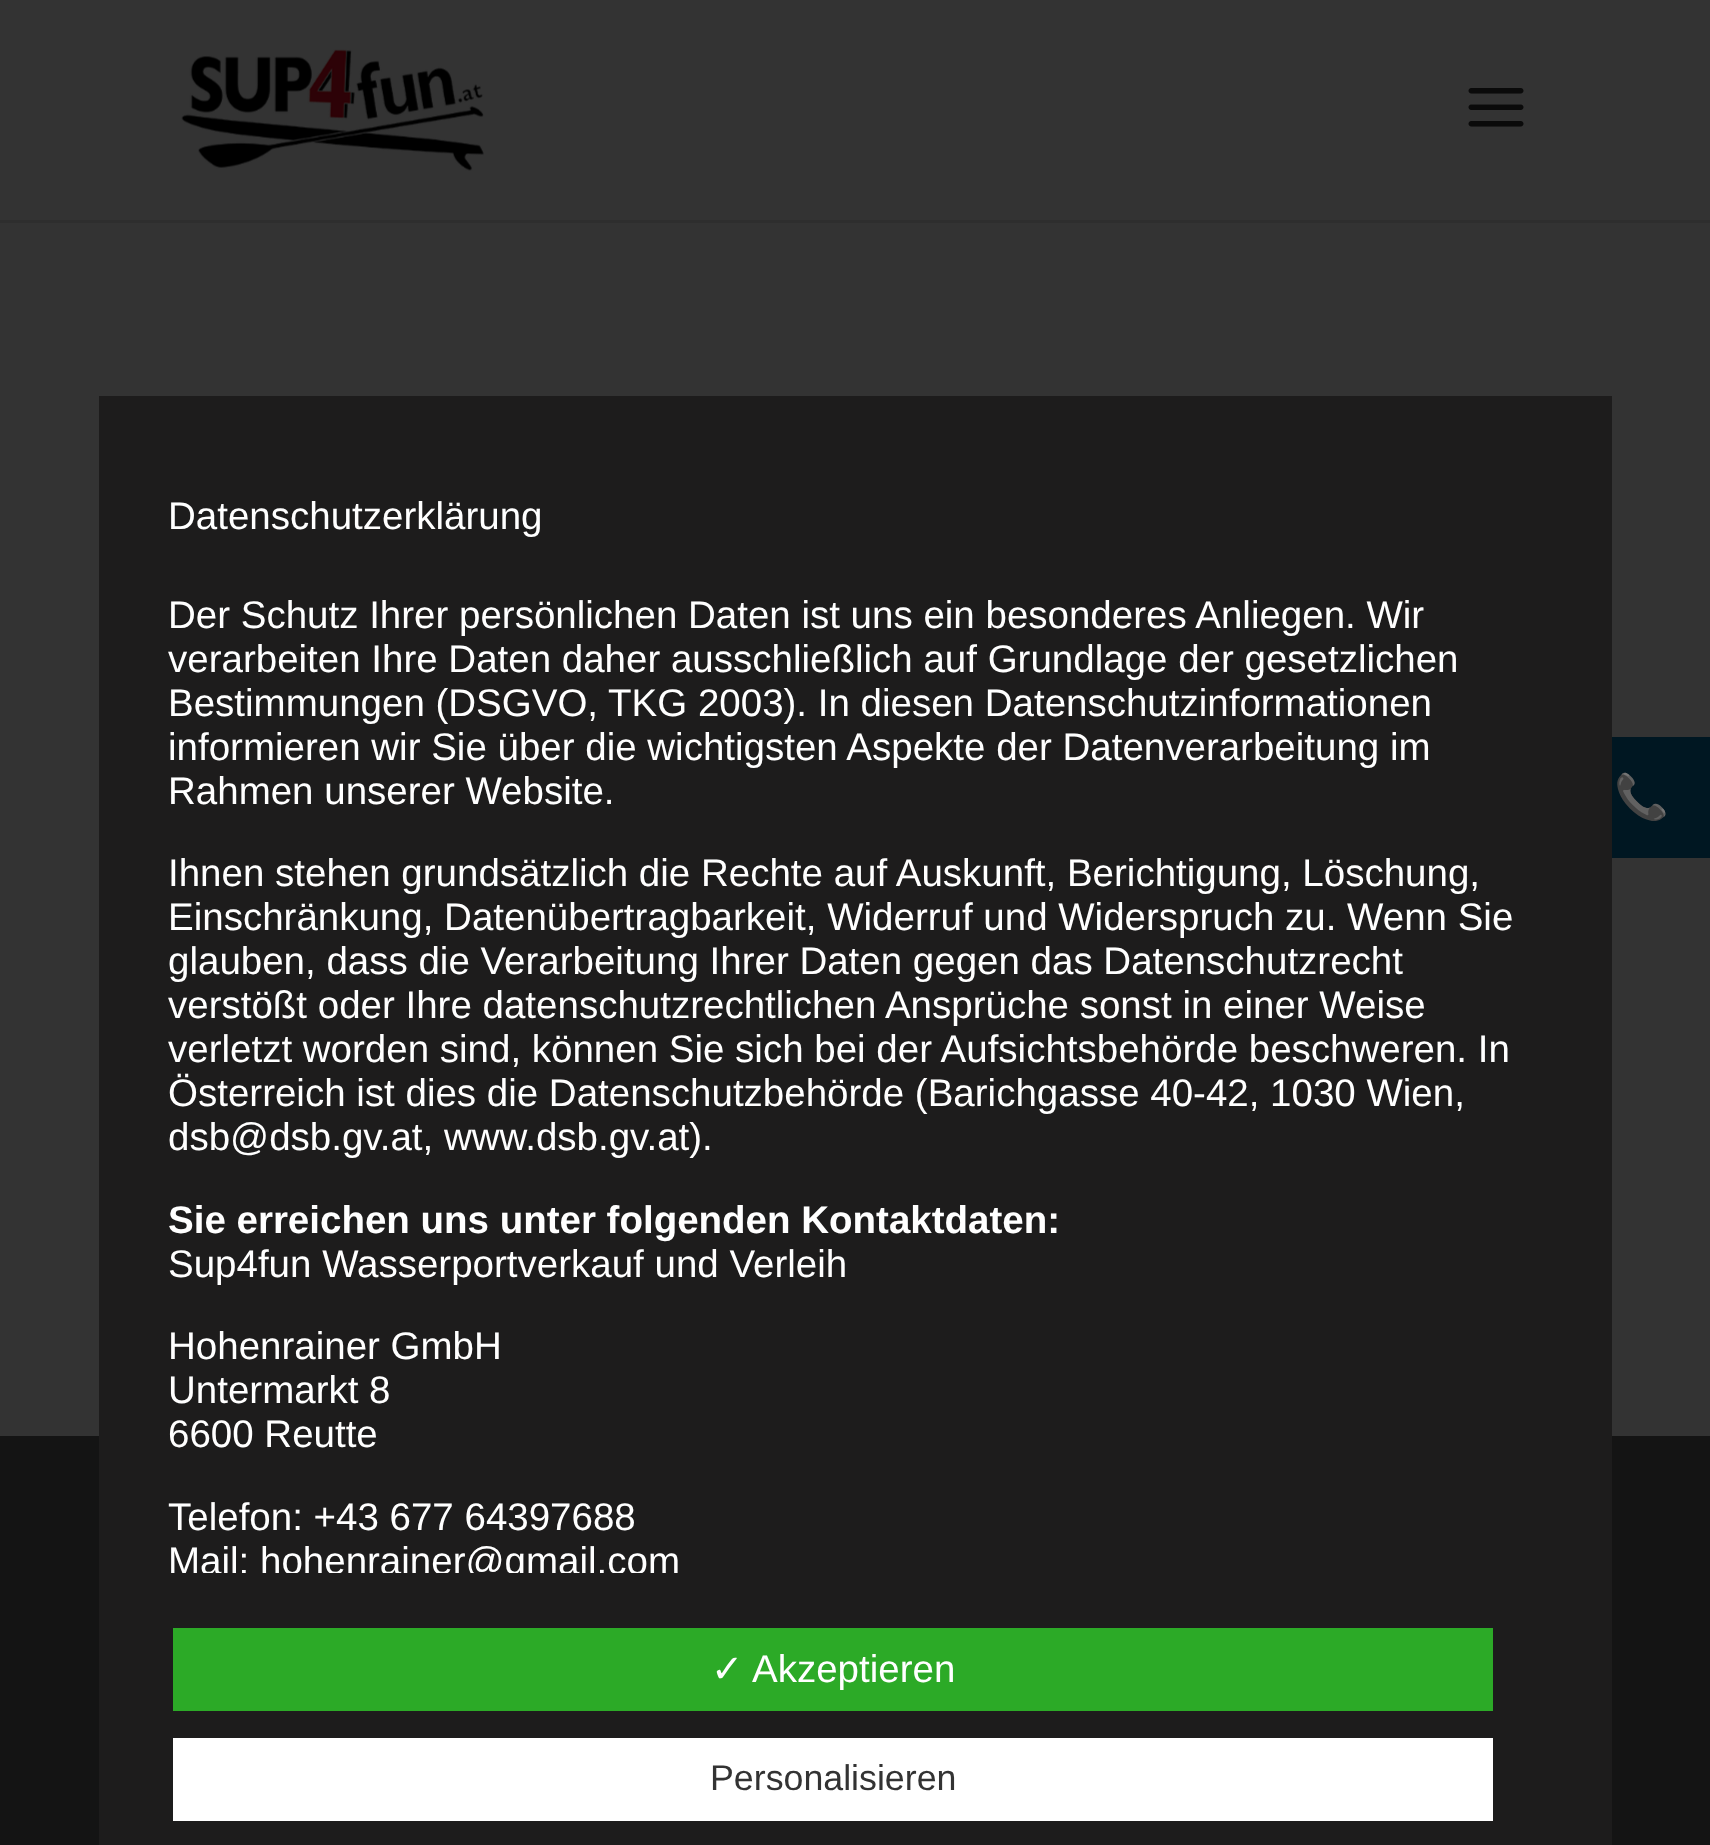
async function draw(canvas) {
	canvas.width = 1710;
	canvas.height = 1845;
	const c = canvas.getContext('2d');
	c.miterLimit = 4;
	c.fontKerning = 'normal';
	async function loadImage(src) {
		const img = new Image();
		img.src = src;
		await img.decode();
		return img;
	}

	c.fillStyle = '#333';
	c.fillRect(0, 0, 1710, 1845);
	c.fillStyle = '#141414';
	c.fillRect(0, 1436, 1710, 409);
	c.fillStyle = '#1d1c1c';
	c.fillRect(99, 396, 1513, 1449);
	c.font = '38.5px Liberation Sans';
	c.fillStyle = '#fff';
	for (const [text, x, y] of [
		['Datenschutzerklärung', 168, 529],
		['Der Schutz Ihrer persönlichen Daten ist uns ein besonderes Anliegen. Wir', 168, 628],
		['verarbeiten Ihre Daten daher ausschließlich auf Grundlage der gesetzlichen', 168, 672],
		['Bestimmungen (DSGVO, TKG 2003). In diesen Datenschutzinformationen', 168, 716],
		['informieren wir Sie über die wichtigsten Aspekte der Datenverarbeitung im', 168, 760],
		['Rahmen unserer Website.', 168, 804],
		['Ihnen stehen grundsätzlich die Rechte auf Auskunft, Berichtigung, Löschung,', 168, 886],
		['Einschränkung, Datenübertragbarkeit, Widerruf und Widerspruch zu. Wenn Sie', 168, 930],
		['glauben, dass die Verarbeitung Ihrer Daten gegen das Datenschutzrecht', 168, 974],
		['verstößt oder Ihre datenschutzrechtlichen Ansprüche sonst in einer Weise', 168, 1018],
		['verletzt worden sind, können Sie sich bei der Aufsichtsbehörde beschweren. In', 168, 1062],
		['Österreich ist dies die Datenschutzbehörde (Barichgasse 40-42, 1030 Wien,', 168, 1106],
		['dsb@dsb.gv.at, www.dsb.gv.at).', 168, 1150],
	]) {
		c.fillText(text, x, y);
	}
	c.font = 'bold 38.5px Liberation Sans';
	c.fillText('Sie erreichen uns unter folgenden Kontaktdaten:', 168, 1233);
	c.font = '38.5px Liberation Sans';
	for (const [text, x, y] of [
		['Sup4fun Wasserportverkauf und Verleih', 168, 1277],
		['Hohenrainer GmbH', 168, 1359],
		['Untermarkt 8', 168, 1403],
		['6600 Reutte', 168, 1447],
		['Telefon: +43 677 64397688', 168, 1530],
	]) {
		c.fillText(text, x, y);
	}
	c.save();
	c.beginPath();
	c.rect(168, 465, 1444, 1108);
	c.clip();
	c.fillText('Mail: hohenrainer@gmail.com', 168, 1574);
	c.restore();
	c.fillStyle = '#2caa27';
	c.fillRect(173, 1628, 1320, 83);
	c.font = '38.5px DejaVu Sans';
	c.fillStyle = '#fff';
	c.fillText('✓', 711, 1682);
	c.font = '38.5px Liberation Sans';
	c.fillText('Akzeptieren', 752, 1682);
	c.fillRect(173, 1738, 1320, 83);
	c.font = '35.75px Liberation Sans';
	c.fillStyle = '#333';
	c.fillText('Personalisieren', 710, 1790);
	c.fillStyle = '#2e2e2e';
	c.beginPath();
	c.moveTo(0, 220);
	c.lineTo(0, 223);
	c.lineTo(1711, 223);
	c.lineTo(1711, 3);
	c.lineTo(1710, 3);
	c.lineTo(1710, 220);
	c.closePath();
	c.fill();
	c.drawImage(await loadImage('img1.png'), 181, 49, 303, 122);
	c.drawImage(await loadImage('img2.png'), 1468, 88, 56, 39);
	c.fillStyle = '#001722';
	c.fillRect(1612, 737, 98, 121);
	c.font = 'bold 44px Noto Color Emoji';
	c.fillStyle = '#333';
	c.fillText('📞', 1614, 812);
}

draw(document.querySelector('canvas'));
